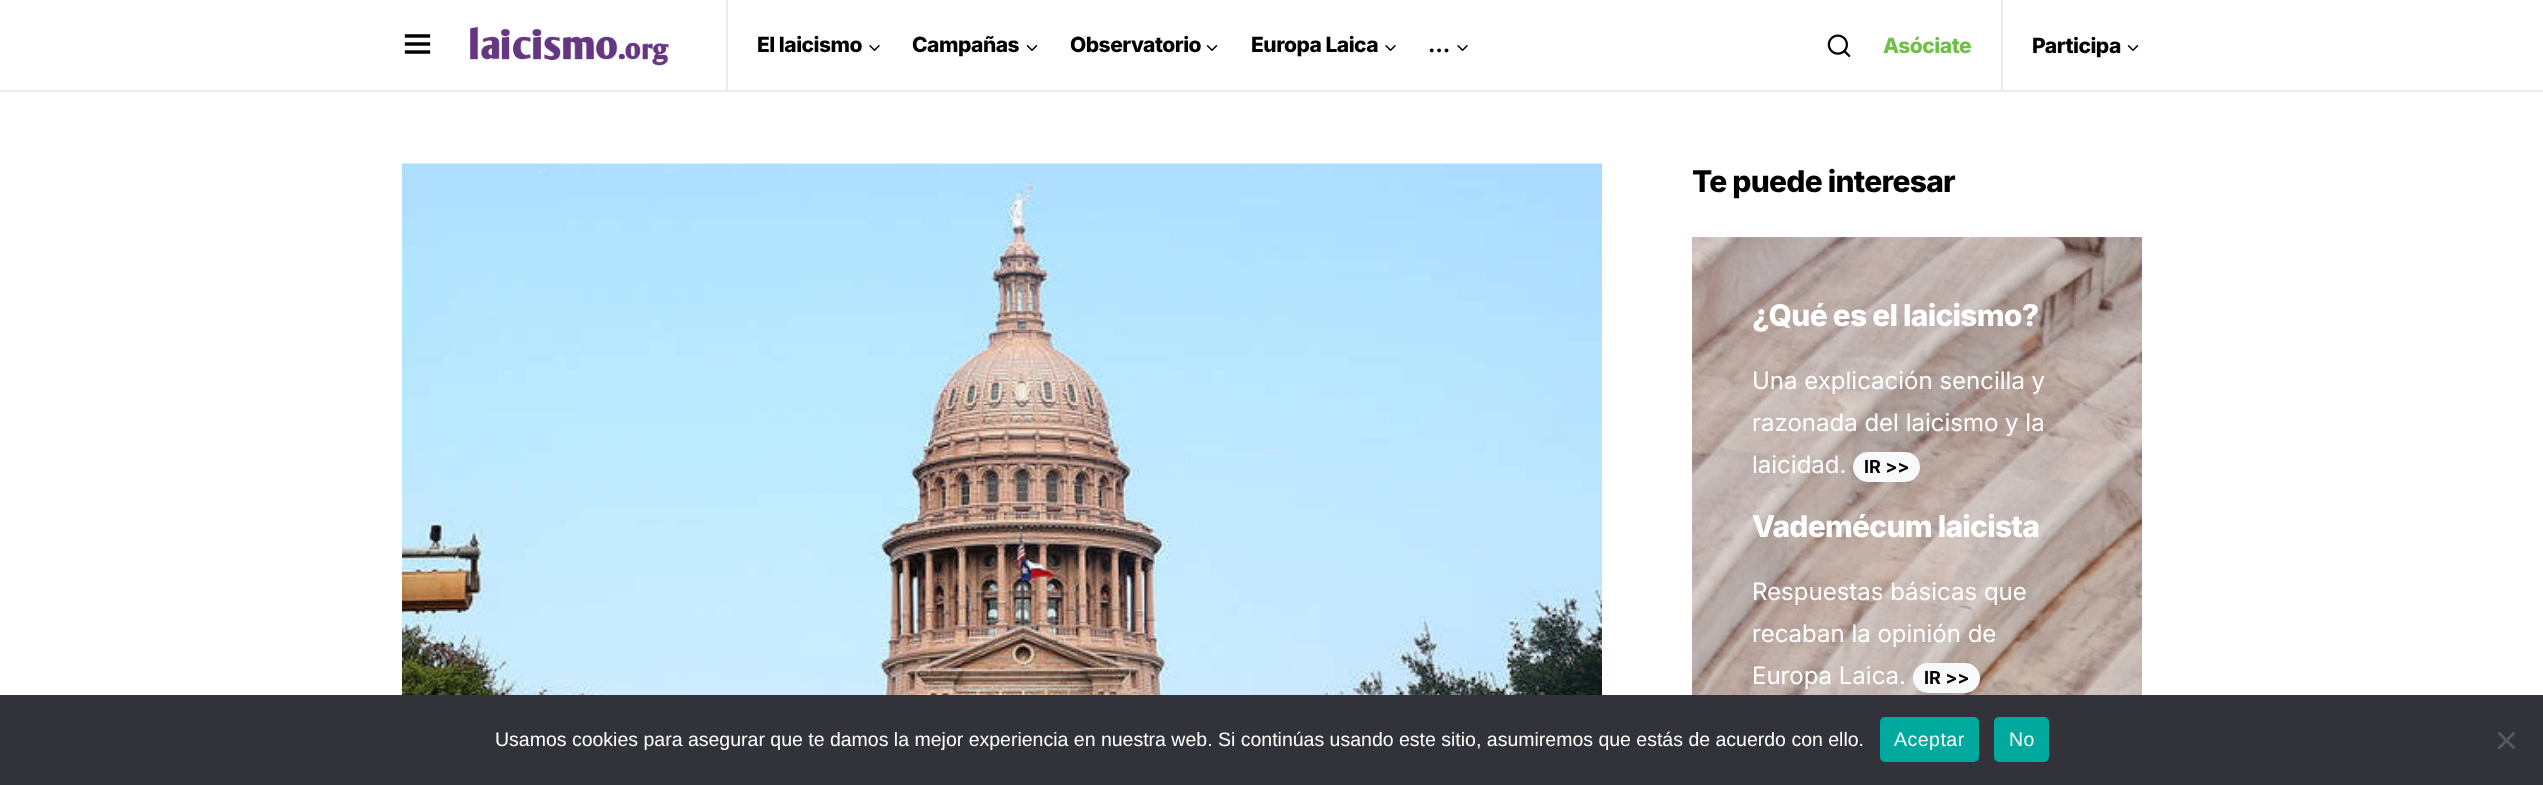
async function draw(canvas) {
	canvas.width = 2543;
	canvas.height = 785;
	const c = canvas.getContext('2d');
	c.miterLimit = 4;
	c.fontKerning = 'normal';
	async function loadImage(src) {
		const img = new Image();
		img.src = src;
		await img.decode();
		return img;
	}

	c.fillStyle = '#fff';
	c.fillRect(0, 0, 2543, 785);
	c.fillStyle = '#e9ecef';
	c.fillRect(0, 90, 2543, 2);
	c.drawImage(await loadImage('img1.png'), 404, 34, 27, 20);
	c.drawImage(await loadImage('img2.png'), 470, 27, 199, 39);
	c.fillRect(726, 0, 2, 90);
	c.letterSpacing = '-0.5px';
	c.font = '800 21px Inter';
	c.fillStyle = '#000';
	c.fillText('El laicismo', 757, 52);
	c.drawImage(await loadImage('img3.png'), 869, 45, 11, 6);
	c.fillText('Campañas', 912, 52);
	c.drawImage(await loadImage('img4.png'), 1026, 45, 12, 6);
	c.fillText('Observatorio', 1070, 52);
	c.drawImage(await loadImage('img4.png'), 1206, 45, 12, 6);
	c.fillText('Europa Laica', 1251, 52);
	c.drawImage(await loadImage('img3.png'), 1385, 45, 11, 6);
	c.fillText('…', 1428, 52);
	c.drawImage(await loadImage('img3.png'), 1457, 45, 11, 6);
	c.drawImage(await loadImage('img5.png'), 1827, 34, 24, 23);
	c.fillStyle = '#71bf49';
	c.fillText('Asóciate', 1883, 53);
	c.fillStyle = '#e9ecef';
	c.fillRect(2001, 0, 2, 90);
	c.fillStyle = '#000';
	c.fillText('Participa', 2032, 53);
	c.drawImage(await loadImage('img4.png'), 2127, 45, 12, 6);
	c.drawImage(await loadImage('img6.png'), 402, 163, 1200, 532);
	c.letterSpacing = '-0.75px';
	c.font = '800 30px Inter';
	c.fillText('Te puede interesar', 1692, 192);
	c.drawImage(await loadImage('img7.png'), 1692, 237, 450, 458);
	c.fillStyle = '#fff';
	c.fillText('¿Qué es el laicismo?', 1752, 326);
	c.letterSpacing = '0px';
	c.font = '24px Inter';
	for (const [text, x, y] of [
		['Una explicación sencilla y', 1752, 389],
		['razonada del laicismo y la', 1752, 431],
		['laicidad.', 1752, 473],
	]) {
		c.fillText(text, x, y);
	}
	c.fillStyle = '#f8f9fa';
	c.beginPath();
	c.roundRect(1853, 452, 67, 30, 15);
	c.fill();
	c.font = 'bold 18px Inter';
	c.fillStyle = '#000';
	c.fillText('IR >>', 1864, 473);
	c.letterSpacing = '-0.75px';
	c.font = '800 30px Inter';
	c.fillStyle = '#fff';
	c.fillText('Vademécum laicista', 1752, 537);
	c.letterSpacing = '0px';
	c.font = '24px Inter';
	for (const [text, x, y] of [
		['Respuestas básicas que', 1752, 600],
		['recaban la opinión de', 1752, 642],
		['Europa Laica.', 1752, 684],
	]) {
		c.fillText(text, x, y);
	}
	c.fillStyle = '#f8f9fa';
	c.beginPath();
	c.roundRect(1913, 663, 67, 30, 15);
	c.fill();
	c.font = 'bold 18px Inter';
	c.fillStyle = '#000';
	c.fillText('IR >>', 1924, 684);
	c.fillStyle = '#32323a';
	c.fillRect(0, 695, 2543, 90);
	c.font = '19.5px Liberation Sans';
	c.fillStyle = '#fff';
	c.fillText('Usamos cookies para asegurar que te damos la mejor experiencia en nuestra web. Si continúas usando este sitio, asumiremos que estás de acuerdo con ello.', 495, 746);
	c.fillStyle = '#00a99d';
	c.beginPath();
	c.roundRect(1880, 717, 99, 45, 5);
	c.fill();
	c.letterSpacing = '0.5px';
	c.fillStyle = '#fff';
	c.fillText('Aceptar', 1894, 746);
	c.fillStyle = '#00a99d';
	c.beginPath();
	c.roundRect(1994, 717, 55, 45, 5);
	c.fill();
	c.fillStyle = '#fff';
	c.fillText('No', 2009, 746);
	c.fillStyle = '#59595d';
	c.beginPath();
	c.moveTo(2513.5, 731.5);
	c.lineTo(2515.5, 733.5);
	c.lineTo(2499.5, 749.5);
	c.lineTo(2497.5, 747.5);
	c.closePath();
	c.fill();
	c.beginPath();
	c.moveTo(2497.5, 733.5);
	c.lineTo(2499.5, 731.5);
	c.lineTo(2515.5, 747.5);
	c.lineTo(2513.5, 749.5);
	c.closePath();
	c.fill();
}

draw(document.querySelector('canvas'));
